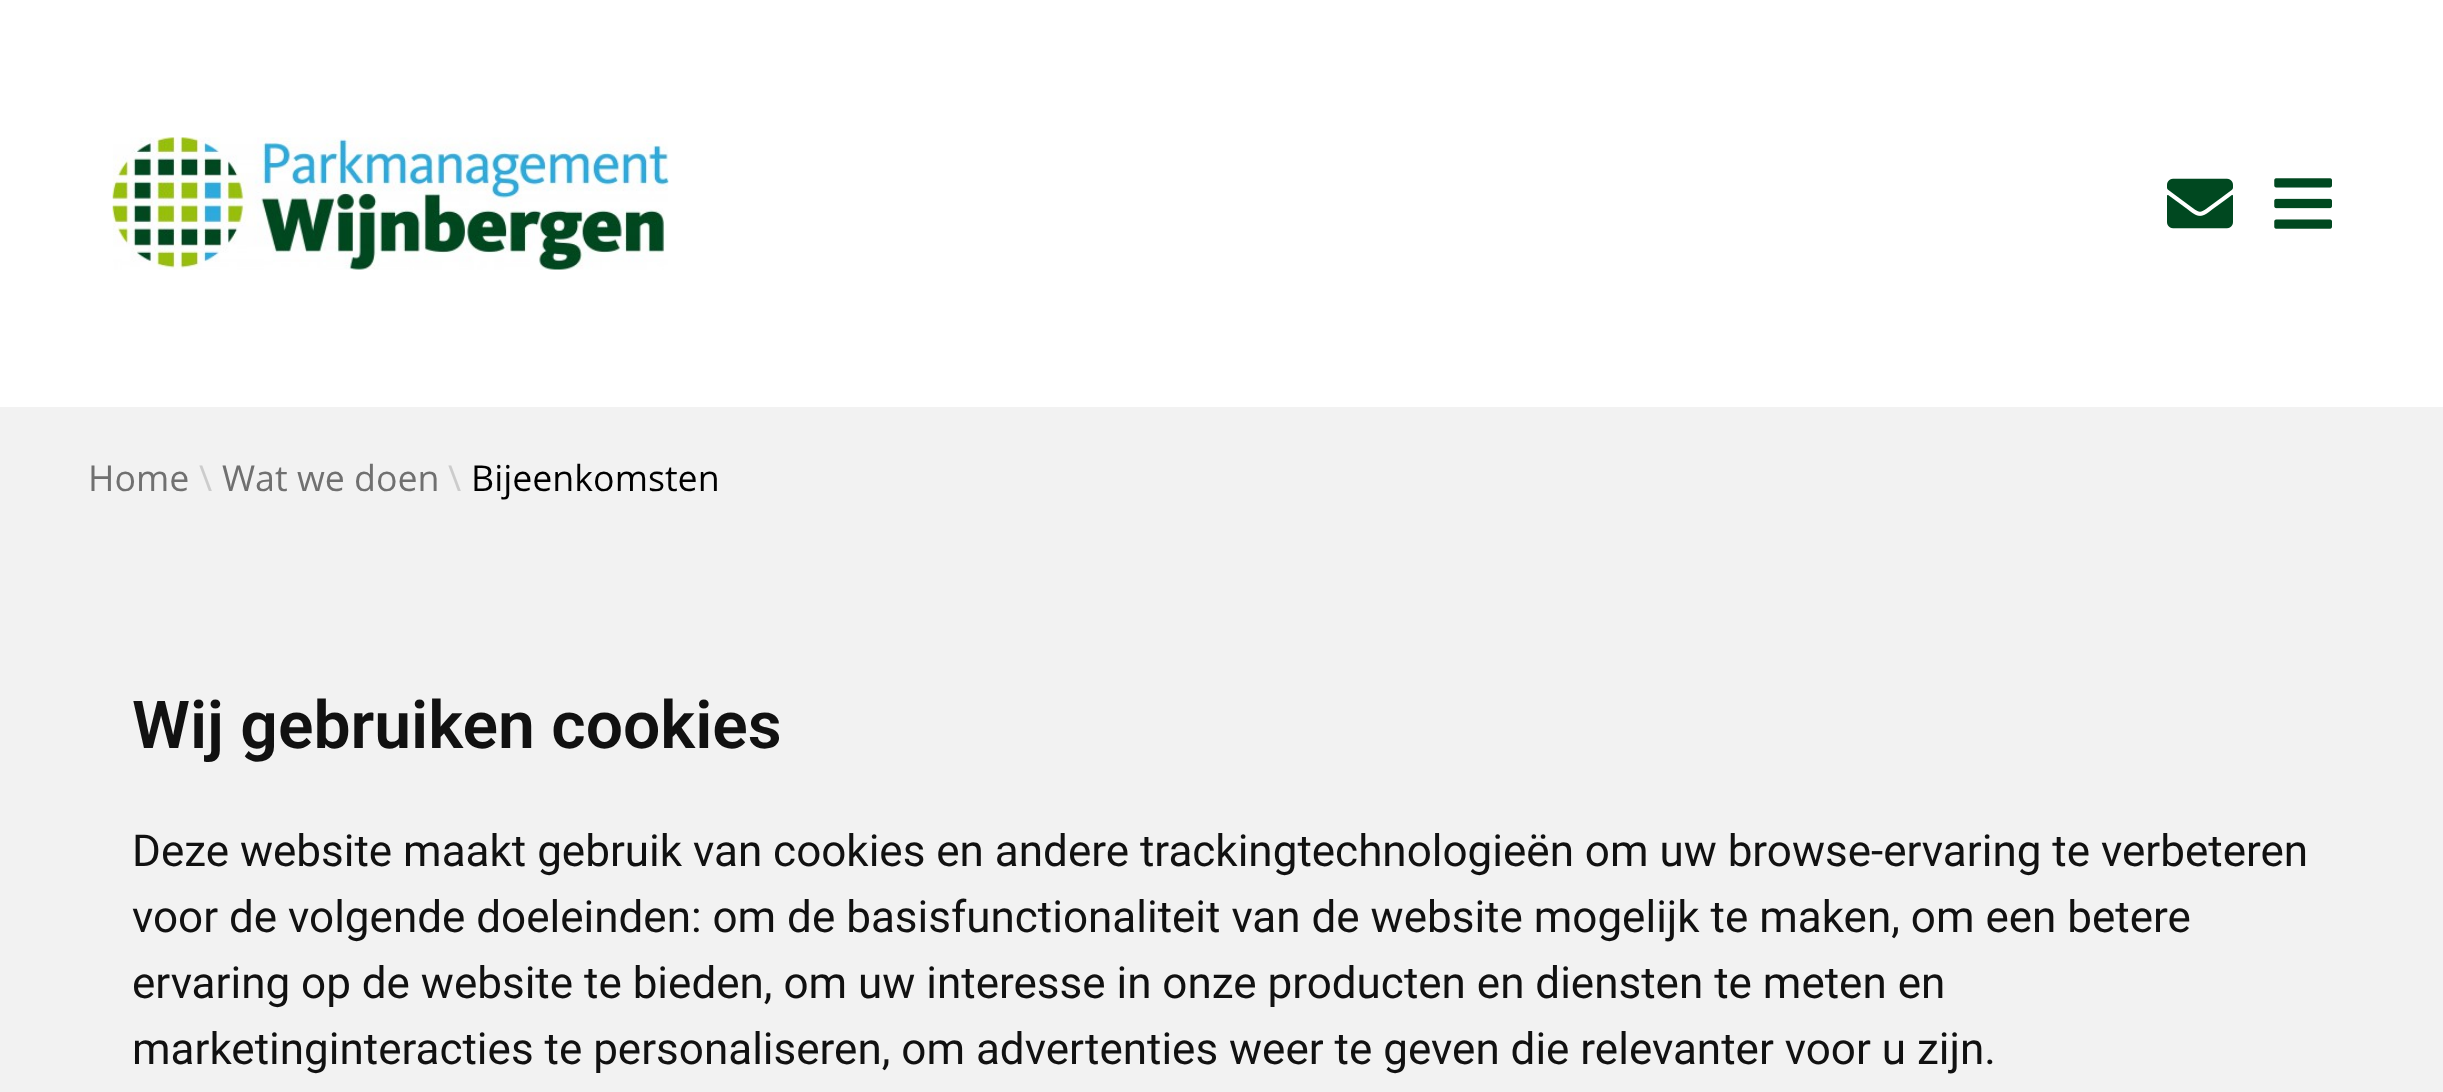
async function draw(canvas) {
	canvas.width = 2443;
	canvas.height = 1092;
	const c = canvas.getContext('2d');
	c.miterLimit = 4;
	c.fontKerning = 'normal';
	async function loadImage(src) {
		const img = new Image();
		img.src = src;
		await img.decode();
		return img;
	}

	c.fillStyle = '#fff';
	c.fillRect(0, 0, 2443, 1092);
	c.drawImage(await loadImage('img1.png'), 112, 137, 557, 133);
	c.drawImage(await loadImage('img2.png'), 2167, 178, 66, 51);
	c.drawImage(await loadImage('img3.png'), 2274, 178, 58, 51);
	c.fillStyle = '#f2f2f2';
	c.fillRect(0, 407, 2443, 685);
	c.font = '35.75px Open Sans';
	c.fillStyle = '#707070';
	c.fillText('Home', 88, 491);
	c.fillStyle = '#ccc';
	c.fillText('\\', 199, 491);
	c.fillStyle = '#707070';
	c.fillText('Wat we doen', 222, 491);
	c.fillStyle = '#ccc';
	c.fillText('\\', 448, 491);
	c.fillStyle = '#000';
	c.fillText('Bijeenkomsten', 471, 491);
	c.font = '600 66px Roboto';
	c.fillStyle = '#111';
	c.fillText('Wij gebruiken cookies', 132, 748);
	c.font = '44px Roboto';
	for (const [text, x, y] of [
		['Deze website maakt gebruik van cookies en andere trackingtechnologieën om uw browse-ervaring te verbeteren', 132, 866],
		['voor de volgende doeleinden: om de basisfunctionaliteit van de website mogelijk te maken, om een betere', 132, 932],
		['ervaring op de website te bieden, om uw interesse in onze producten en diensten te meten en', 132, 998],
		['marketinginteracties te personaliseren, om advertenties weer te geven die relevanter voor u zijn.', 132, 1064],
	]) {
		c.fillText(text, x, y);
	}
}

draw(document.querySelector('canvas'));
